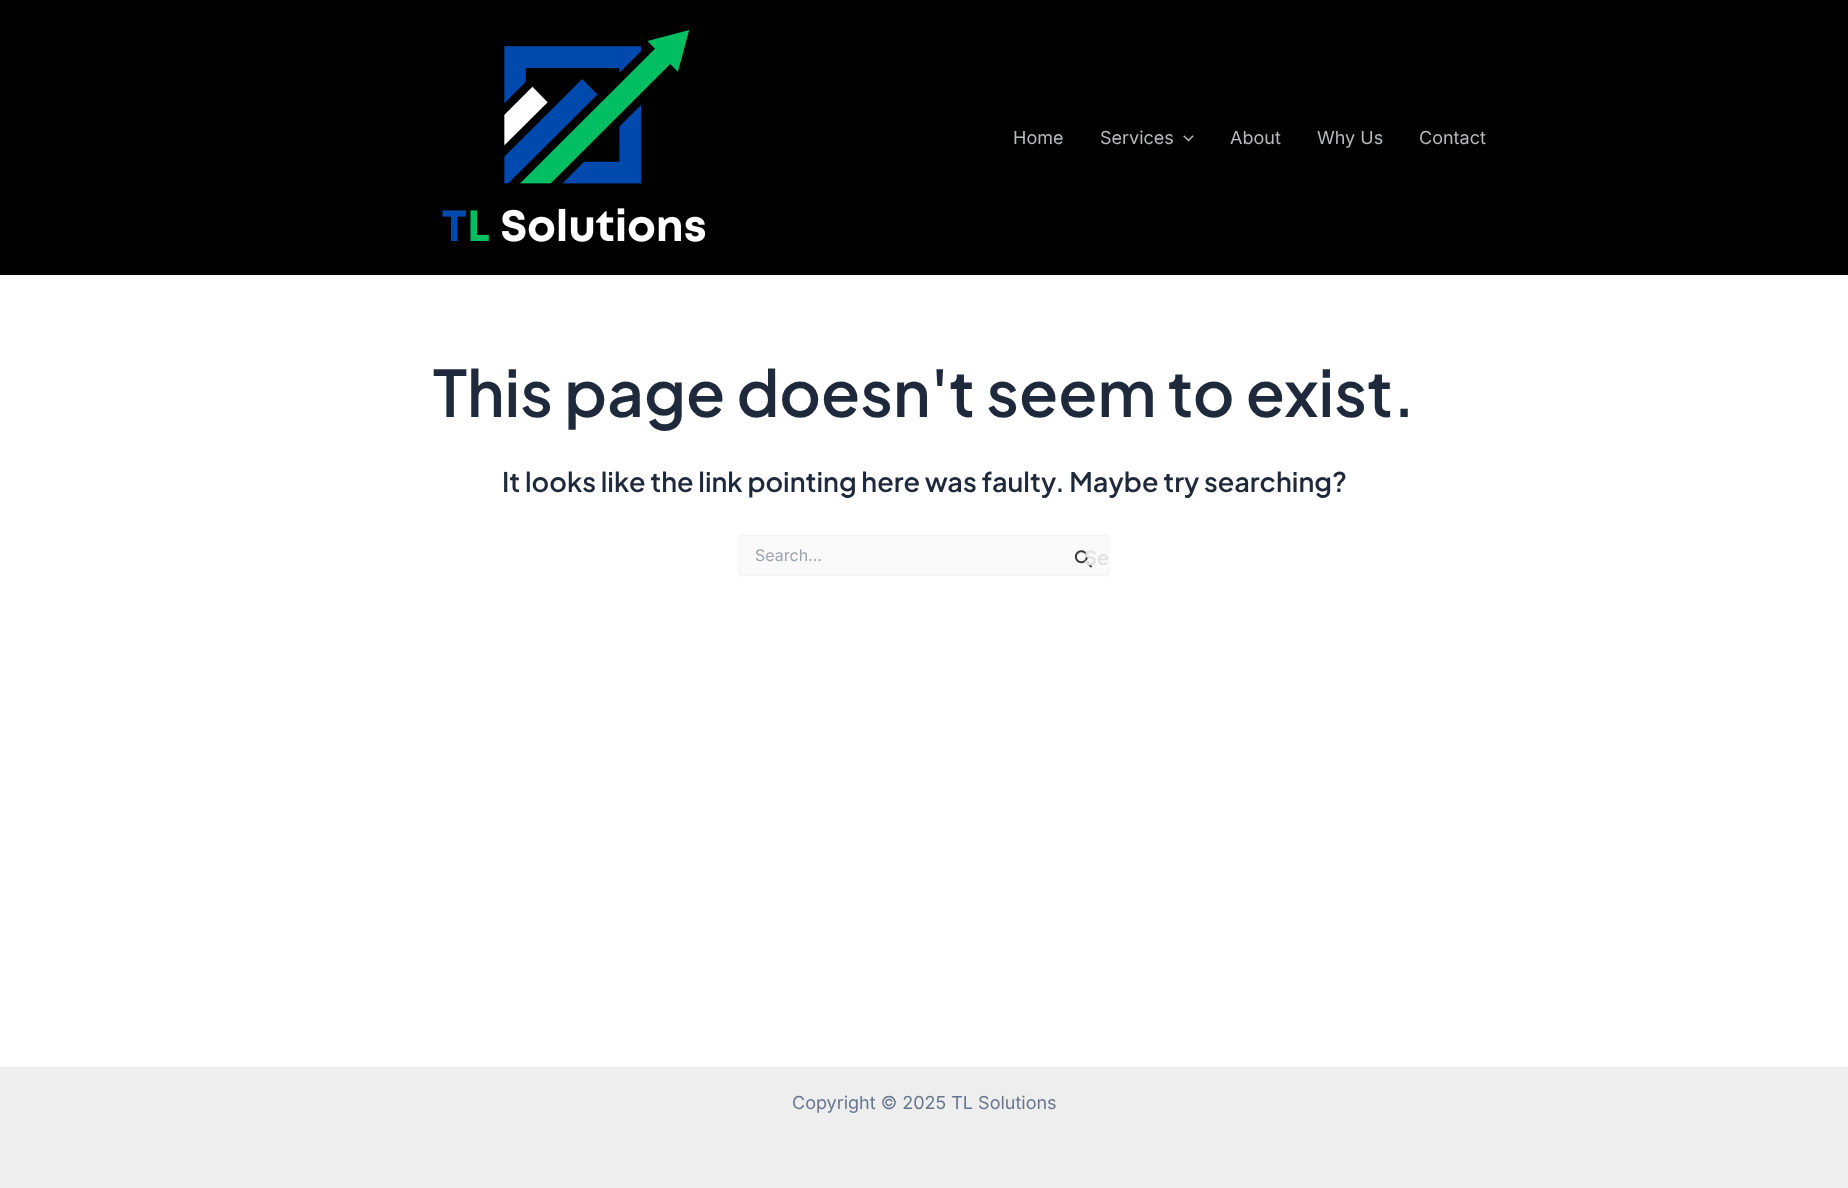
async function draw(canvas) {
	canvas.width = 1848;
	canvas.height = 1188;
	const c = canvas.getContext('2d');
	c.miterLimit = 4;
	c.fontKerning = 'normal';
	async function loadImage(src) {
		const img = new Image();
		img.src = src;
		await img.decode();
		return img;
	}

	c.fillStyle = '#fff';
	c.fillRect(0, 0, 1848, 1188);
	c.fillStyle = '#000';
	c.fillRect(0, 0, 1848, 275);
	c.drawImage(await loadImage('img1.png'), 442, 30, 264, 212);
	c.font = '18px Inter';
	c.fillStyle = '#b8babc';
	c.fillText('Home', 1013, 144);
	c.fillText('Services', 1100, 144);
	c.drawImage(await loadImage('img2.png'), 1183, 135, 11, 7);
	for (const [text, x, y] of [
		['About', 1230, 144],
		['Why Us', 1317, 144],
		['Contact', 1419, 144],
	]) {
		c.fillText(text, x, y);
	}
	c.font = '600 64px Plus Jakarta Sans';
	c.fillStyle = '#1e293b';
	c.fillText('This page doesn\'t seem to exist.', 433, 417);
	c.font = '600 27px Plus Jakarta Sans';
	c.fillText('It looks like the link pointing here was faulty. Maybe try searching?', 502, 492);
	c.fillStyle = '#0000000d';
	c.filter = 'blur(1px)';
	c.beginPath();
	c.roundRect(739, 536, 370, 40, 2);
	c.fill();
	c.filter = 'none';
	c.fillStyle = '#fafafa';
	c.beginPath();
	c.roundRect(739.5, 535.5, 369, 39, 1.5);
	c.fill();
	c.strokeStyle = '#f2f5f7';
	c.stroke();
	c.font = '16px Inter';
	c.fillStyle = '#9ca3af';
	c.fillText('Search...', 755, 561);
	c.drawImage(await loadImage('img3.png'), 1074, 550, 18, 18);
	c.font = '600 20px Inter';
	c.fillStyle = '#e2e2e2';
	c.fillText('Se', 1084, 565);
	c.fillStyle = '#eee';
	c.fillRect(0, 1068, 1848, 120);
	c.fillStyle = '#eaeaea';
	c.fillRect(0, 1067, 1848, 1);
	c.font = '18px Inter';
	c.fillStyle = '#67768e';
	c.fillText('Copyright © 2025 TL Solutions', 792, 1109);
}

draw(document.querySelector('canvas'));
